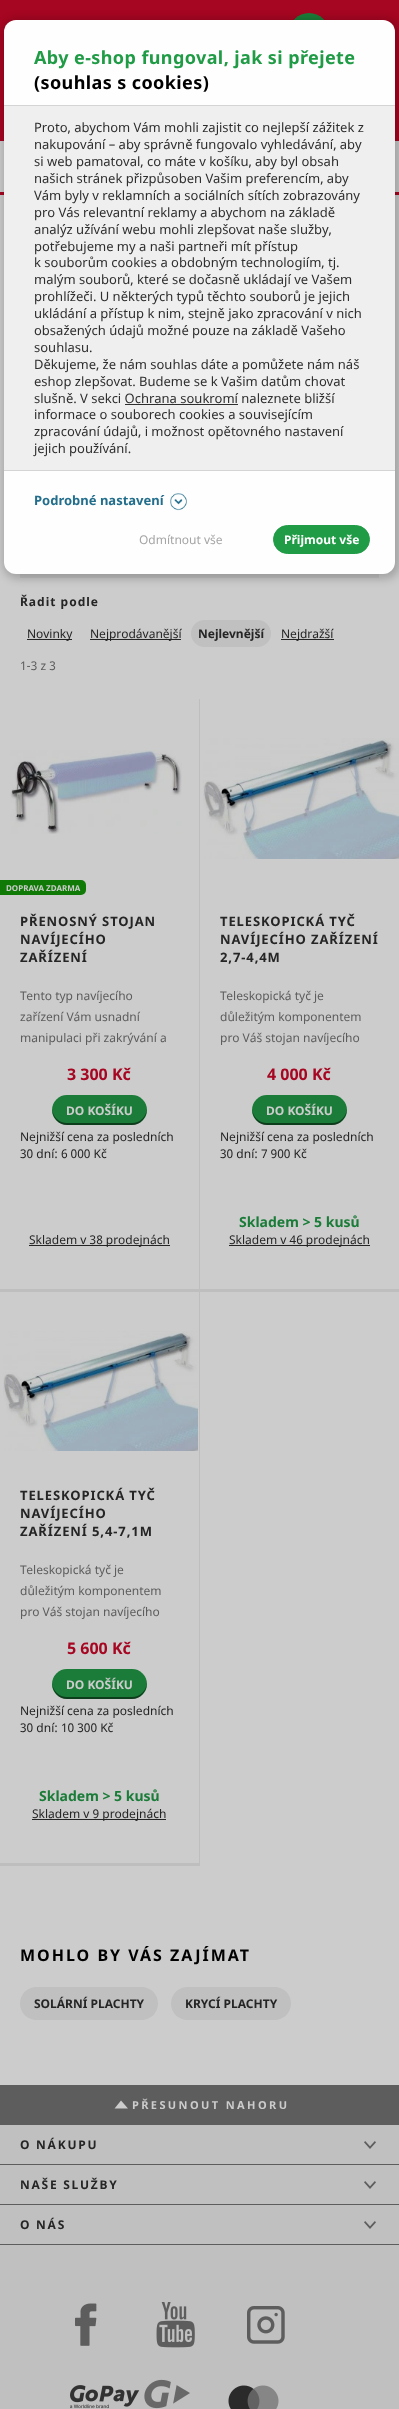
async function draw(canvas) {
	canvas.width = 399;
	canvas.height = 2409;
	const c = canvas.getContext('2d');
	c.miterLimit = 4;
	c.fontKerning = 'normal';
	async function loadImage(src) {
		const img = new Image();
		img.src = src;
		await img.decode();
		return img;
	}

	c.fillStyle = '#ccc';
	c.fillRect(0, 0, 399, 2409);
	c.fillStyle = '#a60621';
	c.fillRect(0, 0, 399, 141);
	c.fillStyle = '#1a7c38';
	c.beginPath();
	c.arc(309, 33, 20, 0, 2 * Math.PI);
	c.fill();
	c.fillStyle = '#a60621';
	c.fillRect(0, 192, 399, 3);
	c.strokeStyle = '#c0c0c0';
	c.lineWidth = 4;
	c.strokeRect(22, 424, 355, 152);
	c.fillStyle = '#00000033';
	c.filter = 'blur(4px)';
	c.beginPath();
	c.roundRect(3, 19, 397, 560, 15);
	c.fill();
	c.filter = 'none';
	c.fillStyle = '#fefefe';
	c.beginPath();
	c.roundRect(4, 20, 391, 554, 12);
	c.fill();
	c.letterSpacing = '0.4px';
	c.font = 'bold 18px Noto Sans';
	c.fillStyle = '#209b46';
	c.fillText('Aby e-shop fungoval, jak si přejete', 34, 64);
	c.fillStyle = '#000';
	c.fillText('(souhlas s cookies)', 34, 89);
	for (const [x, y, w, h, color] of [
		[4, 106, 391, 364, '#efefef'],
		[4, 105, 391, 1, '#d4d4d4'],
		[4, 470, 391, 1, '#d4d4d4'],
	]) {
		c.fillStyle = color;
		c.fillRect(x, y, w, h);
	}
	c.letterSpacing = '0px';
	c.font = '13px Noto Sans';
	c.fillStyle = '#2e2e2e';
	for (const [text, x, y] of [
		['Proto, abychom Vám mohli zajistit co nejlepší zážitek z', 34, 132],
		['nakupování – aby správně fungovalo vyhledávání, aby', 34, 149],
		['si web pamatoval, co máte v košíku, aby byl obsah', 34, 166],
		['našich stránek přizpůsoben Vašim preferencím, aby', 34, 183],
		['Vám byly v reklamních a sociálních sítích zobrazovány', 34, 200],
		['pro Vás relevantní reklamy a abychom na základě', 34, 217],
		['analýz užívání webu mohli zlepšovat naše služby,', 34, 234],
		['potřebujeme my a naši partneři mít přístup', 34, 251],
		['k souborům cookies a obdobným technologiím, tj.', 34, 267],
		['malým souborů, které se dočasně ukládají ve Vašem', 34, 284],
		['prohlížeči. U některých typů těchto souborů je jejich', 34, 301],
		['ukládání a přístup k nim, stejně jako zpracování v nich', 34, 318],
		['obsažených údajů možné pouze na základě Vašeho', 34, 335],
		['souhlasu.', 34, 352],
		['Děkujeme, že nám souhlas dáte a pomůžete nám náš', 34, 369],
		['eshop zlepšovat. Budeme se k Vašim datům chovat', 34, 386],
		['slušně. V sekci Ochrana soukromí naleznete bližší', 34, 403],
	]) {
		c.fillText(text, x, y);
	}
	c.fillRect(125, 404, 113, 1);
	for (const [text, x, y] of [
		['informace o souborech cookies a souvisejícím', 34, 419],
		['zpracování údajů, i možnost opětovného nastavení', 34, 436],
		['jejich používání.', 34, 453],
	]) {
		c.fillText(text, x, y);
	}
	c.font = 'bold 13px Noto Sans';
	c.fillStyle = '#236e8c';
	c.fillText('Podrobné nastavení', 34, 505);
	c.drawImage(await loadImage('img1.png'), 170, 493, 17, 18);
	c.font = '12px Noto Sans';
	c.fillStyle = '#a5a5a5';
	c.fillText('Odmítnout vše', 139, 544);
	c.fillStyle = '#209b46';
	c.beginPath();
	c.roundRect(273.5, 525.5, 96, 28, 14);
	c.fill();
	c.strokeStyle = '#209b46';
	c.lineWidth = 1;
	c.stroke();
	c.font = 'bold 12px Noto Sans';
	c.fillStyle = '#fff';
	c.fillText('Přijmout vše', 284, 544);
	c.letterSpacing = '1px';
	c.fillStyle = '#252525';
	c.fillText('Řadit podle', 20, 606);
	c.fillRect(27, 639, 45, 1);
	c.letterSpacing = '0px';
	c.font = '12px Noto Sans';
	c.fillText('Novinky', 27, 638);
	c.fillRect(90, 639, 91, 1);
	c.fillText('Nejprodávanější', 90, 638);
	c.fillStyle = '#c0c0c0';
	c.beginPath();
	c.roundRect(191, 620, 80, 27, 13.5);
	c.fill();
	c.font = 'bold 12px Noto Sans';
	c.fillStyle = '#252525';
	c.fillText('Nejlevnější', 198, 638);
	c.fillRect(281, 639, 53, 1);
	c.font = '12px Noto Sans';
	c.fillText('Nejdražší', 281, 638);
	c.fillStyle = '#5d5d5d';
	c.fillText('1-3 z 3', 20, 670);
	c.fillStyle = '#bebebe';
	c.fillRect(199, 699, 1, 1167);
	c.fillRect(0, 1289, 399, 3);
	c.drawImage(await loadImage('img2.png'), 10, 750, 172, 84);
	c.fillStyle = '#107a06';
	c.beginPath();
	c.roundRect(0, 880, 86, 15, [0, 5, 5, 0]);
	c.fill();
	c.font = 'bold 8px Noto Sans';
	c.fillStyle = '#ccc';
	c.fillText('DOPRAVA ZDARMA', 6, 891);
	c.letterSpacing = '0.9px';
	c.font = 'bold 13px Noto Sans';
	c.fillStyle = '#252525';
	for (const [text, x, y] of [
		['PŘENOSNÝ STOJAN', 20, 926],
		['NAVÍJECÍHO', 20, 944],
		['ZAŘÍZENÍ', 20, 962],
	]) {
		c.fillText(text, x, y);
	}
	c.letterSpacing = '0px';
	c.font = '12px Noto Sans';
	c.fillStyle = '#5d5d5d';
	for (const [text, x, y] of [
		['Tento typ navíjecího', 20, 1000],
		['zařízení Vám usnadní', 20, 1021],
		['manipulaci při zakrývání a', 20, 1042],
	]) {
		c.fillText(text, x, y);
	}
	c.font = 'bold 16px Noto Sans';
	c.fillStyle = '#a60621';
	c.fillText('3 300 Kč', 67, 1080);
	c.fillStyle = '#1a7c38';
	c.beginPath();
	c.roundRect(52, 1095, 95, 30, 15);
	c.fill();
	c.fillStyle = '#00000080';
	c.beginPath();
	c.moveTo(52, 1109);
	c.bezierCurveTo(52, 1116, 57, 1123, 64, 1125);
	c.lineTo(135, 1125);
	c.bezierCurveTo(142, 1123, 147, 1116, 147, 1109);
	c.bezierCurveTo(146, 1117, 140, 1123, 132, 1123);
	c.lineTo(67, 1123);
	c.bezierCurveTo(59, 1123, 53, 1117, 52, 1109);
	c.closePath();
	c.fill();
	c.font = 'bold 12px Noto Sans';
	c.fillStyle = '#ccc';
	c.fillText('DO KOŠÍKU', 66, 1115);
	c.font = '12px Noto Sans';
	c.fillStyle = '#252525';
	c.fillText('Nejnižší cena za posledních', 20, 1141);
	c.fillText('30 dní: 6 000 Kč', 20, 1158);
	c.fillRect(29, 1245, 141, 1);
	c.fillText('Skladem v 38 prodejnách', 29, 1244);
	c.drawImage(await loadImage('img3.png'), 203, 738, 196, 121);
	c.letterSpacing = '0.9px';
	c.font = 'bold 13px Noto Sans';
	for (const [text, x, y] of [
		['TELESKOPICKÁ TYČ', 220, 926],
		['NAVÍJECÍHO ZAŘÍZENÍ', 220, 944],
		['2,7-4,4M', 220, 962],
	]) {
		c.fillText(text, x, y);
	}
	c.letterSpacing = '0px';
	c.font = '12px Noto Sans';
	c.fillStyle = '#5d5d5d';
	for (const [text, x, y] of [
		['Teleskopická tyč je', 220, 1000],
		['důležitým komponentem', 220, 1021],
		['pro Váš stojan navíjecího', 220, 1042],
	]) {
		c.fillText(text, x, y);
	}
	c.font = 'bold 16px Noto Sans';
	c.fillStyle = '#a60621';
	c.fillText('4 000 Kč', 267, 1080);
	c.fillStyle = '#1a7c38';
	c.beginPath();
	c.roundRect(252, 1095, 95, 30, 15);
	c.fill();
	c.fillStyle = '#00000080';
	c.beginPath();
	c.moveTo(252, 1109);
	c.bezierCurveTo(252, 1116, 257, 1123, 264, 1125);
	c.lineTo(335, 1125);
	c.bezierCurveTo(342, 1123, 347, 1116, 347, 1109);
	c.bezierCurveTo(346, 1117, 340, 1123, 332, 1123);
	c.lineTo(267, 1123);
	c.bezierCurveTo(259, 1123, 253, 1117, 252, 1109);
	c.closePath();
	c.fill();
	c.font = 'bold 12px Noto Sans';
	c.fillStyle = '#ccc';
	c.fillText('DO KOŠÍKU', 266, 1115);
	c.font = '12px Noto Sans';
	c.fillStyle = '#252525';
	c.fillText('Nejnižší cena za posledních', 220, 1141);
	c.fillText('30 dní: 7 900 Kč', 220, 1158);
	c.font = 'bold 14px Noto Sans';
	c.fillStyle = '#1a7c38';
	c.fillText('Skladem > 5 kusů', 239, 1227);
	c.fillStyle = '#252525';
	c.fillRect(229, 1245, 141, 1);
	c.font = '12px Noto Sans';
	c.fillText('Skladem v 46 prodejnách', 229, 1244);
	c.fillStyle = '#bebebe';
	c.fillRect(0, 1863, 200, 3);
	c.drawImage(await loadImage('img4.png'), 3, 1331, 195, 120);
	c.letterSpacing = '0.9px';
	c.font = 'bold 13px Noto Sans';
	c.fillStyle = '#252525';
	for (const [text, x, y] of [
		['TELESKOPICKÁ TYČ', 20, 1500],
		['NAVÍJECÍHO', 20, 1518],
		['ZAŘÍZENÍ 5,4-7,1M', 20, 1536],
	]) {
		c.fillText(text, x, y);
	}
	c.letterSpacing = '0px';
	c.font = '12px Noto Sans';
	c.fillStyle = '#5d5d5d';
	for (const [text, x, y] of [
		['Teleskopická tyč je', 20, 1574],
		['důležitým komponentem', 20, 1595],
		['pro Váš stojan navíjecího', 20, 1616],
	]) {
		c.fillText(text, x, y);
	}
	c.font = 'bold 16px Noto Sans';
	c.fillStyle = '#a60621';
	c.fillText('5 600 Kč', 67, 1654);
	c.fillStyle = '#1a7c38';
	c.beginPath();
	c.roundRect(52, 1669, 95, 30, 15);
	c.fill();
	c.fillStyle = '#00000080';
	c.beginPath();
	c.moveTo(52, 1683);
	c.bezierCurveTo(52, 1690, 57, 1697, 64, 1699);
	c.lineTo(135, 1699);
	c.bezierCurveTo(142, 1697, 147, 1690, 147, 1683);
	c.bezierCurveTo(146, 1691, 140, 1697, 132, 1697);
	c.lineTo(67, 1697);
	c.bezierCurveTo(59, 1697, 53, 1691, 52, 1683);
	c.closePath();
	c.fill();
	c.font = 'bold 12px Noto Sans';
	c.fillStyle = '#ccc';
	c.fillText('DO KOŠÍKU', 66, 1689);
	c.font = '12px Noto Sans';
	c.fillStyle = '#252525';
	c.fillText('Nejnižší cena za posledních', 20, 1715);
	c.fillText('30 dní: 10 300 Kč', 20, 1732);
	c.font = 'bold 14px Noto Sans';
	c.fillStyle = '#1a7c38';
	c.fillText('Skladem > 5 kusů', 39, 1801);
	c.fillStyle = '#252525';
	c.fillRect(32, 1819, 134, 1);
	c.font = '12px Noto Sans';
	c.fillText('Skladem v 9 prodejnách', 32, 1818);
	c.letterSpacing = '2px';
	c.font = 'bold 16px Noto Sans';
	c.fillStyle = '#000';
	c.fillText('MOHLO BY VÁS ZAJÍMAT', 20, 1961);
	c.fillStyle = '#c0c0c0';
	c.beginPath();
	c.roundRect(20, 1987, 138, 33, 16.5);
	c.fill();
	c.letterSpacing = '0px';
	c.font = 'bold 12px Noto Sans';
	c.fillStyle = '#252525';
	c.fillText('SOLÁRNÍ PLACHTY', 34, 2008);
	c.fillStyle = '#c0c0c0';
	c.beginPath();
	c.roundRect(171, 1987, 120, 33, 16.5);
	c.fill();
	c.fillStyle = '#252525';
	c.fillText('KRYCÍ PLACHTY', 185, 2008);
	c.fillStyle = '#c0c0c0';
	c.fillRect(0, 2125, 399, 284);
	c.fillStyle = '#5d5d5d';
	c.fillRect(0, 2085, 399, 40);
	c.fillStyle = '#ccc';
	c.beginPath();
	c.moveTo(114.5, 2108.5);
	c.lineTo(121, 2100.5);
	c.lineTo(128, 2108.5);
	c.closePath();
	c.fill();
	c.letterSpacing = '2.4px';
	c.font = 'bold 11px Noto Sans';
	c.fillText('PŘESUNOUT NAHORU', 132, 2109);
	c.letterSpacing = '1.75px';
	c.font = 'bold 12px Noto Sans';
	c.fillStyle = '#252525';
	c.fillText('O NÁKUPU', 20, 2149);
	c.drawImage(await loadImage('img5.png'), 364, 2141, 12, 8);
	c.fillStyle = '#5d5d5d';
	c.fillRect(0, 2164, 399, 1);
	c.fillStyle = '#252525';
	c.fillText('NAŠE SLUŽBY', 20, 2189);
	c.drawImage(await loadImage('img5.png'), 364, 2181, 12, 8);
	c.fillStyle = '#5d5d5d';
	c.fillRect(0, 2204, 399, 1);
	c.fillStyle = '#252525';
	c.fillText('O NÁS', 20, 2229);
	c.drawImage(await loadImage('img5.png'), 364, 2221, 12, 8);
	c.fillStyle = '#5d5d5d';
	c.fillRect(0, 2244, 399, 1);
	c.drawImage(await loadImage('img6.png'), 75, 2303, 22, 43);
	c.drawImage(await loadImage('img7.png'), 156, 2302, 39, 46);
	c.drawImage(await loadImage('img8.png'), 247, 2306, 38, 38);
	c.drawImage(await loadImage('img9.png'), 70, 2379, 120, 30);
	c.drawImage(await loadImage('img10.png'), 228, 2385, 51, 24);
}

draw(document.querySelector('canvas'));
